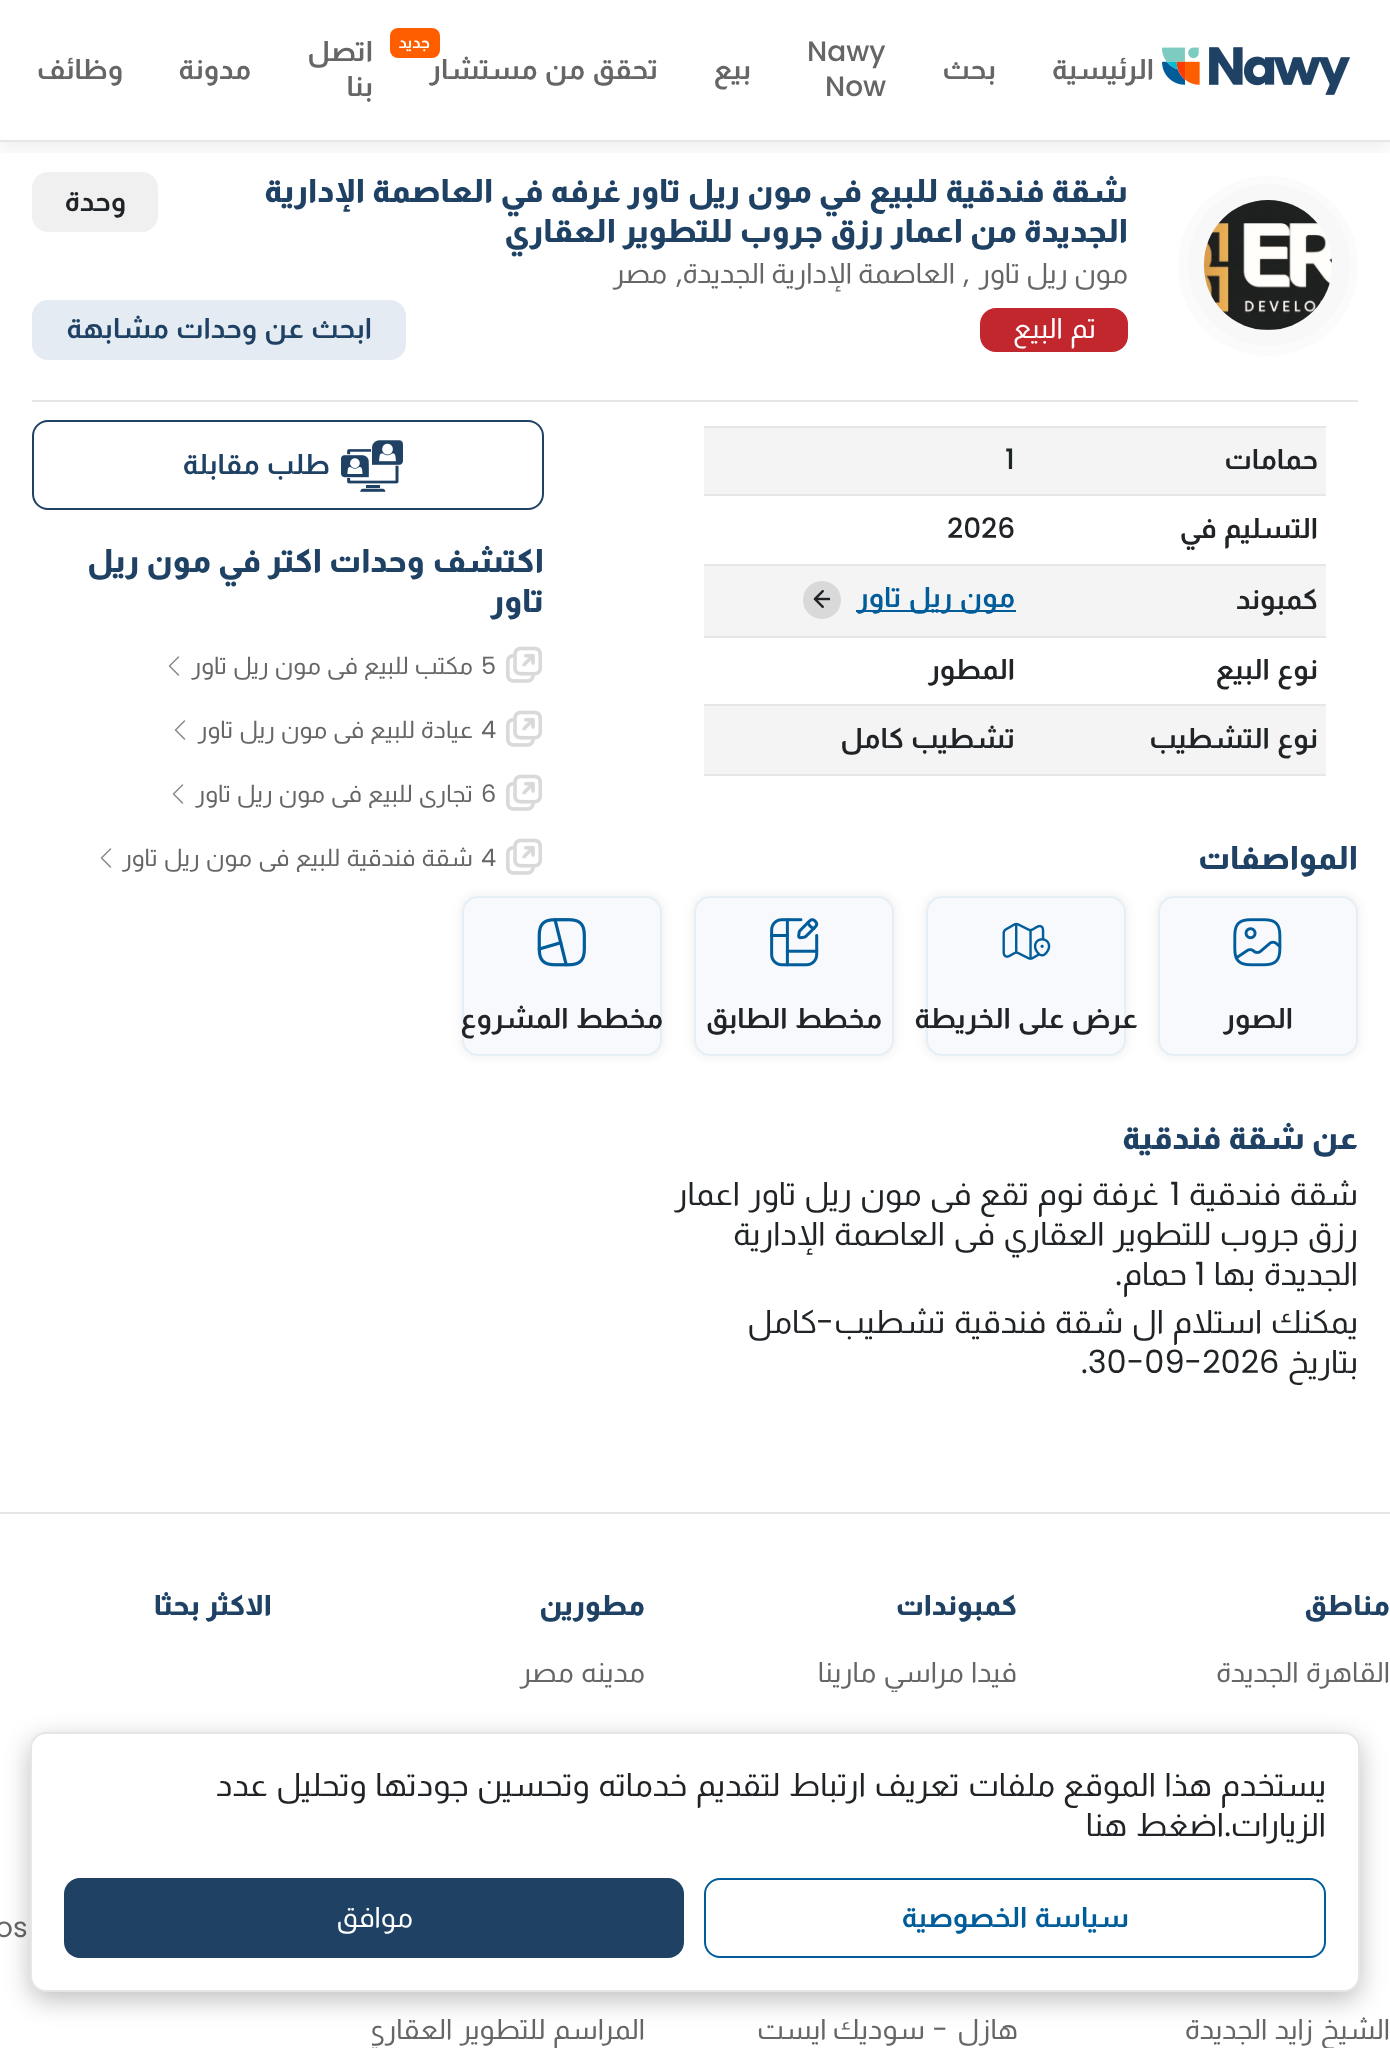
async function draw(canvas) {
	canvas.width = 1390;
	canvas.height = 2054;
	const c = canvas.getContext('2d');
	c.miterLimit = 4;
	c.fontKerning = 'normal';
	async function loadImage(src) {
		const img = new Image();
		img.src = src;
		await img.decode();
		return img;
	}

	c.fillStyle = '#fff';
	c.fillRect(0, 0, 1390, 2054);
	c.fillStyle = '#f0f0f0';
	c.beginPath();
	c.roundRect(32, 172, 126, 60, 16);
	c.fill();
	c.save();
	c.beginPath();
	c.rect(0, 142, 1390, 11);
	c.clip();
	c.fillStyle = '#0000000f';
	c.filter = 'blur(8px)';
	c.beginPath();
	c.rect(0, 8, 1390, 142);
	c.fill();
	c.filter = 'none';
	c.restore();
	c.fillStyle = '#e6e6e6';
	c.fillRect(0, 140, 1390, 2);
	c.drawImage(await loadImage('img1.png'), 1162, 47, 188, 48);
	c.direction = 'rtl';
	c.font = 'bold 28px Almarai';
	c.fillStyle = '#666';
	c.fillText('الرئيسية', 1154, 79);
	c.fillText('بحث', 996, 79);
	c.direction = 'ltr';
	c.font = '500 28px Poppins';
	c.fillText('Nawy', 807, 61);
	c.fillText('Now', 825, 96);
	c.direction = 'rtl';
	c.font = 'bold 28px Almarai';
	c.fillText('بيع', 751, 79);
	c.wordSpacing = '2px';
	c.fillText('تحقق من مستشار', 658, 79);
	c.fillStyle = '#ff5e00';
	c.beginPath();
	c.roundRect(390, 28, 50, 30, 8);
	c.fill();
	c.wordSpacing = '0px';
	c.font = 'bold 16px Almarai';
	c.fillStyle = '#fff';
	c.fillText('جديد', 430, 48);
	c.font = 'bold 28px Almarai';
	c.fillStyle = '#666';
	for (const [text, x, y] of [
		['اتصل', 373, 61],
		['بنا', 373, 96],
		['مدونة', 251, 79],
		['وظائف', 123, 79],
	]) {
		c.fillText(text, x, y);
	}
	c.fillStyle = '#fbfbfb';
	c.beginPath();
	c.arc(1268, 266, 90, 0, 2 * Math.PI);
	c.fill();
	c.fillStyle = '#f8f8f8';
	c.beginPath();
	c.arc(1269, 265, 81, 0, 2 * Math.PI);
	c.fill();
	c.drawImage(await loadImage('img2.png'), 1204, 200, 128, 130);
	c.wordSpacing = '1px';
	c.font = '800 32px Almarai';
	c.fillStyle = '#1e4164';
	for (const [text, x, y] of [
		['شقة فندقية للبيع', 1128, 202],
		['في مون ريل تاور', 862, 202],
		['غرفه في العاصمة الإدارية', 621, 202],
		['الجديدة من اعمار رزق جروب للتطوير العقاري', 1128, 242],
	]) {
		c.fillText(text, x, y);
	}
	c.wordSpacing = '0px';
	c.font = 'bold 28px Almarai';
	c.fillStyle = '#212427';
	c.fillText('وحدة', 126, 211);
	c.wordSpacing = '1px';
	c.font = '28px Almarai';
	c.fillStyle = '#666';
	c.fillText('مون ريل تاور', 1128, 283);
	c.wordSpacing = '0px';
	c.font = '28px Poppins';
	c.fillText(',', 969, 283);
	c.wordSpacing = '1px';
	c.font = '28px Almarai';
	c.fillText('العاصمة الإدارية الجديدة', 955, 283);
	c.wordSpacing = '0px';
	c.font = '28px Poppins';
	c.fillText(',', 682, 283);
	c.font = '28px Almarai';
	c.fillText('مصر', 667, 283);
	c.fillStyle = '#c1272d';
	c.beginPath();
	c.roundRect(980, 308, 148, 44, 16);
	c.fill();
	c.wordSpacing = '2.25px';
	c.fillStyle = '#fff';
	c.fillText('تم البيع', 1096, 338);
	c.fillStyle = '#e4ebf2';
	c.beginPath();
	c.roundRect(33, 301, 372, 58, 15);
	c.fill();
	c.strokeStyle = '#e4ebf2';
	c.lineWidth = 2;
	c.stroke();
	c.wordSpacing = '2px';
	c.font = 'bold 28px Almarai';
	c.fillStyle = '#1e4164';
	c.fillText('ابحث عن وحدات مشابهة', 372, 338);
	for (const [x, y, w, h, color] of [
		[32, 400, 1326, 2, '#e6e6e6'],
		[704, 426, 622, 2, '#e6e6e6'],
		[704, 428, 622, 66, '#f4f4f4'],
		[704, 494, 622, 2, '#e6e6e6'],
	]) {
		c.fillStyle = color;
		c.fillRect(x, y, w, h);
	}
	c.wordSpacing = '0px';
	c.fillStyle = '#212427';
	c.fillText('حمامات', 1318, 469);
	c.direction = 'ltr';
	c.font = '500 28px Poppins';
	c.fillText('1', 1005, 469);
	c.fillStyle = '#e6e6e6';
	c.fillRect(704, 564, 622, 2);
	c.wordSpacing = '2px';
	c.direction = 'rtl';
	c.font = 'bold 28px Almarai';
	c.fillStyle = '#212427';
	c.fillText('التسليم في', 1318, 538);
	c.wordSpacing = '0px';
	c.direction = 'ltr';
	c.font = '500 28px Poppins';
	c.fillText('2026', 947, 538);
	c.fillStyle = '#f4f4f4';
	c.fillRect(704, 566, 622, 70);
	c.fillStyle = '#e6e6e6';
	c.fillRect(704, 636, 622, 2);
	c.direction = 'rtl';
	c.font = 'bold 28px Almarai';
	c.fillStyle = '#212427';
	c.fillText('كمبوند', 1318, 609);
	c.fillStyle = '#015c9a';
	c.fillRect(856, 610, 160, 2);
	c.wordSpacing = '2px';
	c.fillText('مون ريل تاور', 1015, 607);
	c.fillStyle = '#d9d9d9';
	c.beginPath();
	c.moveTo(822, 619);
	c.bezierCurveTo(811.5, 619, 803, 610.5, 803, 600);
	c.bezierCurveTo(803, 589.5, 811.5, 581, 822, 581);
	c.bezierCurveTo(832.5, 581, 841, 589.5, 841, 600);
	c.bezierCurveTo(841, 610.5, 832.5, 619, 822, 619);
	c.closePath();
	c.fill();
	c.drawImage(await loadImage('img3.png'), 813, 590, 17, 18);
	c.fillStyle = '#e6e6e6';
	c.fillRect(704, 704, 622, 2);
	c.fillStyle = '#212427';
	c.fillText('نوع البيع', 1318, 679);
	c.wordSpacing = '0px';
	c.fillText('المطور', 1015, 679);
	c.fillStyle = '#f4f4f4';
	c.fillRect(704, 706, 622, 68);
	c.fillStyle = '#e6e6e6';
	c.fillRect(704, 774, 622, 2);
	c.wordSpacing = '2px';
	c.fillStyle = '#212427';
	c.fillText('نوع التشطيب', 1318, 748);
	c.fillText('تشطيب كامل', 1015, 748);
	c.wordSpacing = '0px';
	c.font = '800 32px Almarai';
	c.fillStyle = '#1e4164';
	c.fillText('المواصفات', 1358, 869);
	c.fillStyle = '#b8b8b833';
	c.filter = 'blur(4.5px)';
	c.beginPath();
	c.roundRect(1156, 894, 204, 164, 18);
	c.fill();
	c.filter = 'none';
	c.fillStyle = '#f7f9fd';
	c.beginPath();
	c.roundRect(1159, 897, 198, 158, 15);
	c.fill();
	c.strokeStyle = '#e6eff5';
	c.stroke();
	c.drawImage(await loadImage('img4.png'), 1233, 918, 49, 49);
	c.font = 'bold 28px Almarai';
	c.fillStyle = '#212427';
	c.fillText('الصور', 1293, 1028);
	c.fillStyle = '#b8b8b833';
	c.filter = 'blur(4.5px)';
	c.beginPath();
	c.roundRect(924, 894, 204, 164, 18);
	c.fill();
	c.filter = 'none';
	c.fillStyle = '#f7f9fd';
	c.beginPath();
	c.roundRect(927, 897, 198, 158, 15);
	c.fill();
	c.stroke();
	c.drawImage(await loadImage('img5.png'), 1002, 922, 49, 38);
	c.wordSpacing = '2px';
	c.fillStyle = '#212427';
	c.fillText('عرض على الخريطة', 1138, 1028);
	c.fillStyle = '#b8b8b833';
	c.filter = 'blur(4.5px)';
	c.beginPath();
	c.roundRect(692, 894, 204, 164, 18);
	c.fill();
	c.filter = 'none';
	c.fillStyle = '#f7f9fd';
	c.beginPath();
	c.roundRect(695, 897, 198, 158, 15);
	c.fill();
	c.stroke();
	c.drawImage(await loadImage('img6.png'), 770, 918, 49, 49);
	c.fillStyle = '#212427';
	c.fillText('مخطط الطابق', 882, 1028);
	c.fillStyle = '#b8b8b833';
	c.filter = 'blur(4.5px)';
	c.beginPath();
	c.roundRect(460, 894, 204, 164, 18);
	c.fill();
	c.filter = 'none';
	c.fillStyle = '#f7f9fd';
	c.beginPath();
	c.roundRect(463, 897, 198, 158, 15);
	c.fill();
	c.stroke();
	c.drawImage(await loadImage('img7.png'), 537, 918, 49, 49);
	c.fillStyle = '#212427';
	c.fillText('مخطط المشروع', 663, 1028);
	c.wordSpacing = '1px';
	c.font = '800 32px Almarai';
	c.fillStyle = '#1e4164';
	c.fillText('عن شقة فندقية', 1358, 1149);
	c.wordSpacing = '2.75px';
	c.font = '32px Almarai';
	c.fillStyle = '#212427';
	c.fillText('شقة فندقية', 1358, 1205);
	c.wordSpacing = '0px';
	c.direction = 'ltr';
	c.font = '32px Poppins';
	c.fillText('1', 1170, 1205);
	c.wordSpacing = '2.25px';
	c.direction = 'rtl';
	c.font = '32px Almarai';
	c.fillText('غرفة نوم تقع فى مون ريل تاور', 1159, 1205);
	c.wordSpacing = '0px';
	c.fillText('اعمار', 740, 1205);
	c.wordSpacing = '2.75px';
	for (const [text, x, y] of [
		['رزق جروب للتطوير العقاري', 1358, 1245],
		['فى العاصمة الإدارية', 995, 1245],
		['الجديدة بها', 1358, 1285],
	]) {
		c.fillText(text, x, y);
	}
	c.wordSpacing = '0px';
	c.direction = 'ltr';
	c.font = '32px Poppins';
	c.fillText('1', 1195, 1285);
	c.direction = 'rtl';
	c.font = '32px Almarai';
	c.fillText('حمام', 1187, 1285);
	c.font = '32px Poppins';
	c.fillText('.', 1122, 1285);
	c.wordSpacing = '2.75px';
	c.font = '32px Almarai';
	c.fillText('يمكنك استلام ال شقة فندقية تشطيب', 1358, 1333);
	c.wordSpacing = '0px';
	c.font = '32px Poppins';
	c.fillText('-', 834, 1333);
	c.font = '32px Almarai';
	c.fillText('كامل', 817, 1333);
	c.fillText('بتاريخ', 1358, 1373);
	c.direction = 'ltr';
	c.font = '32px Poppins';
	c.fillText('.30-09-2026', 1081, 1373);
	c.beginPath();
	c.roundRect(33, 421, 510, 88, 15);
	c.strokeStyle = '#1e4164';
	c.stroke();
	c.drawImage(await loadImage('img8.png'), 341, 440, 62, 52);
	c.wordSpacing = '2px';
	c.direction = 'rtl';
	c.font = 'bold 28px Almarai';
	c.fillStyle = '#1e4164';
	c.fillText('طلب مقابلة', 330, 474);
	c.wordSpacing = '1px';
	c.font = '800 32px Almarai';
	c.fillText('اكتشف وحدات اكتر في', 544, 572);
	c.fillText('مون ريل', 211, 572);
	c.wordSpacing = '0px';
	c.fillText('تاور', 544, 612);
	c.drawImage(await loadImage('img9.png'), 506, 646, 36, 37);
	c.direction = 'ltr';
	c.font = '24px Poppins';
	c.fillStyle = '#666';
	c.fillText('5', 481, 674);
	c.save();
	c.beginPath();
	c.rect(190, 650, 306, 30);
	c.clip();
	c.wordSpacing = '1.5px';
	c.direction = 'rtl';
	c.font = '24px Almarai';
	c.fillText('مكتب للبيع في مون ريل تاور', 473, 674);
	c.restore();
	c.beginPath();
	c.moveTo(178.5, 675);
	c.lineTo(169.5, 666);
	c.lineTo(178.5, 657);
	c.strokeStyle = '#898989';
	c.lineWidth = 1.5;
	c.lineCap = 'round';
	c.lineJoin = 'round';
	c.stroke();
	c.drawImage(await loadImage('img9.png'), 506, 710, 36, 37);
	c.fillText('4', 481, 738);
	c.save();
	c.beginPath();
	c.rect(196, 714, 300, 30);
	c.clip();
	c.wordSpacing = '1.5px';
	c.direction = 'rtl';
	c.font = '24px Almarai';
	c.fillText('عيادة للبيع في مون ريل تاور', 473, 738);
	c.restore();
	c.beginPath();
	c.moveTo(184.5, 739);
	c.lineTo(175.5, 730);
	c.lineTo(184.5, 721);
	c.stroke();
	c.drawImage(await loadImage('img9.png'), 506, 774, 36, 37);
	c.fillText('6', 481, 802);
	c.save();
	c.beginPath();
	c.rect(194, 778, 302, 30);
	c.clip();
	c.wordSpacing = '1.5px';
	c.direction = 'rtl';
	c.font = '24px Almarai';
	c.fillText('تجاري للبيع في مون ريل تاور', 473, 802);
	c.restore();
	c.beginPath();
	c.moveTo(182.5, 803);
	c.lineTo(173.5, 794);
	c.lineTo(182.5, 785);
	c.stroke();
	c.drawImage(await loadImage('img9.png'), 506, 838, 36, 37);
	c.fillText('4', 481, 866);
	c.save();
	c.beginPath();
	c.rect(122, 842, 374, 30);
	c.clip();
	c.wordSpacing = '1.75px';
	c.direction = 'rtl';
	c.font = '24px Almarai';
	c.fillText('شقة فندقية للبيع في مون ريل تاور', 473, 866);
	c.restore();
	c.beginPath();
	c.moveTo(110.5, 867);
	c.lineTo(101.5, 858);
	c.lineTo(110.5, 849);
	c.stroke();
	c.fillStyle = '#e6e6e6';
	c.fillRect(0, 1512, 1390, 2);
	c.direction = 'rtl';
	c.font = '800 28px Almarai';
	c.fillStyle = '#1e4164';
	c.fillText('مناطق', 1390, 1615);
	c.wordSpacing = '2.25px';
	c.font = '28px Almarai';
	c.fillStyle = '#666';
	c.fillText('القاهرة الجديدة', 1390, 1682);
	c.save();
	c.beginPath();
	c.rect(1118, 2014, 272, 34);
	c.clip();
	c.fillText('الشيخ زايد الجديدة', 1390, 2039);
	c.restore();
	c.wordSpacing = '0px';
	c.font = '800 28px Almarai';
	c.fillStyle = '#1e4164';
	c.fillText('كمبوندات', 1017, 1615);
	c.save();
	c.beginPath();
	c.rect(746, 1656, 272, 36);
	c.clip();
	c.wordSpacing = '2.25px';
	c.font = '28px Almarai';
	c.fillStyle = '#666';
	c.fillText('فيدا مراسي مارينا', 1017, 1682);
	c.restore();
	c.font = '28px Almarai';
	c.fillStyle = '#666';
	c.fillText('هازل', 1018, 2039);
	c.font = '28px Poppins';
	c.fillText('-', 948, 2039);
	c.wordSpacing = '1px';
	c.font = '28px Almarai';
	c.fillText('سوديك ايست', 925, 2039);
	c.wordSpacing = '0px';
	c.font = '800 28px Almarai';
	c.fillStyle = '#1e4164';
	c.fillText('مطورين', 645, 1615);
	c.wordSpacing = '2.25px';
	c.font = '28px Almarai';
	c.fillStyle = '#666';
	c.fillText('مدينه مصر', 645, 1682);
	c.save();
	c.beginPath();
	c.rect(372, 2014, 274, 34);
	c.clip();
	c.fillText('المراسم للتطوير العقاري', 645, 2039);
	c.restore();
	c.wordSpacing = '1px';
	c.font = '800 28px Almarai';
	c.fillStyle = '#1e4164';
	c.fillText('الاكثر بحثا', 272, 1615);
	c.wordSpacing = '0px';
	c.direction = 'ltr';
	c.font = '28px Poppins';
	c.fillStyle = '#666';
	c.fillText('os', -5, 1937);
	c.fillStyle = '#00000040';
	c.filter = 'blur(13px)';
	c.beginPath();
	c.roundRect(30, 1740, 1330, 260, 16);
	c.fill();
	c.filter = 'none';
	c.fillStyle = '#fff';
	c.beginPath();
	c.roundRect(31, 1733, 1328, 258, 15);
	c.fill();
	c.strokeStyle = '#e6e6e6';
	c.lineWidth = 2;
	c.lineJoin = 'miter';
	c.stroke();
	c.wordSpacing = '2.75px';
	c.direction = 'rtl';
	c.font = '32px Almarai';
	c.fillStyle = '#212427';
	c.fillText('يستخدم هذا الموقع', 1326, 1796);
	c.fillText('ملفات تعريف ارتباط لتقديم خدماته وتحسين جودتها وتحليل عدد', 1055, 1796);
	c.wordSpacing = '0px';
	c.fillText('الزيارات', 1326, 1836);
	c.font = '32px Poppins';
	c.fillText('.', 1231, 1836);
	c.wordSpacing = '2.75px';
	c.font = '32px Almarai';
	c.fillText('اضغط هنا', 1224, 1836);
	c.beginPath();
	c.roundRect(705, 1879, 620, 78, 15);
	c.strokeStyle = '#015c9a';
	c.stroke();
	c.wordSpacing = '2px';
	c.font = 'bold 28px Almarai';
	c.fillStyle = '#015c9a';
	c.fillText('سياسة الخصوصية', 1129, 1927);
	c.fillStyle = '#1e4164';
	c.beginPath();
	c.roundRect(64, 1878, 620, 80, 16);
	c.fill();
	c.wordSpacing = '0px';
	c.font = '28px Almarai';
	c.fillStyle = '#fff';
	c.fillText('موافق', 413, 1927);
}

draw(document.querySelector('canvas'));
